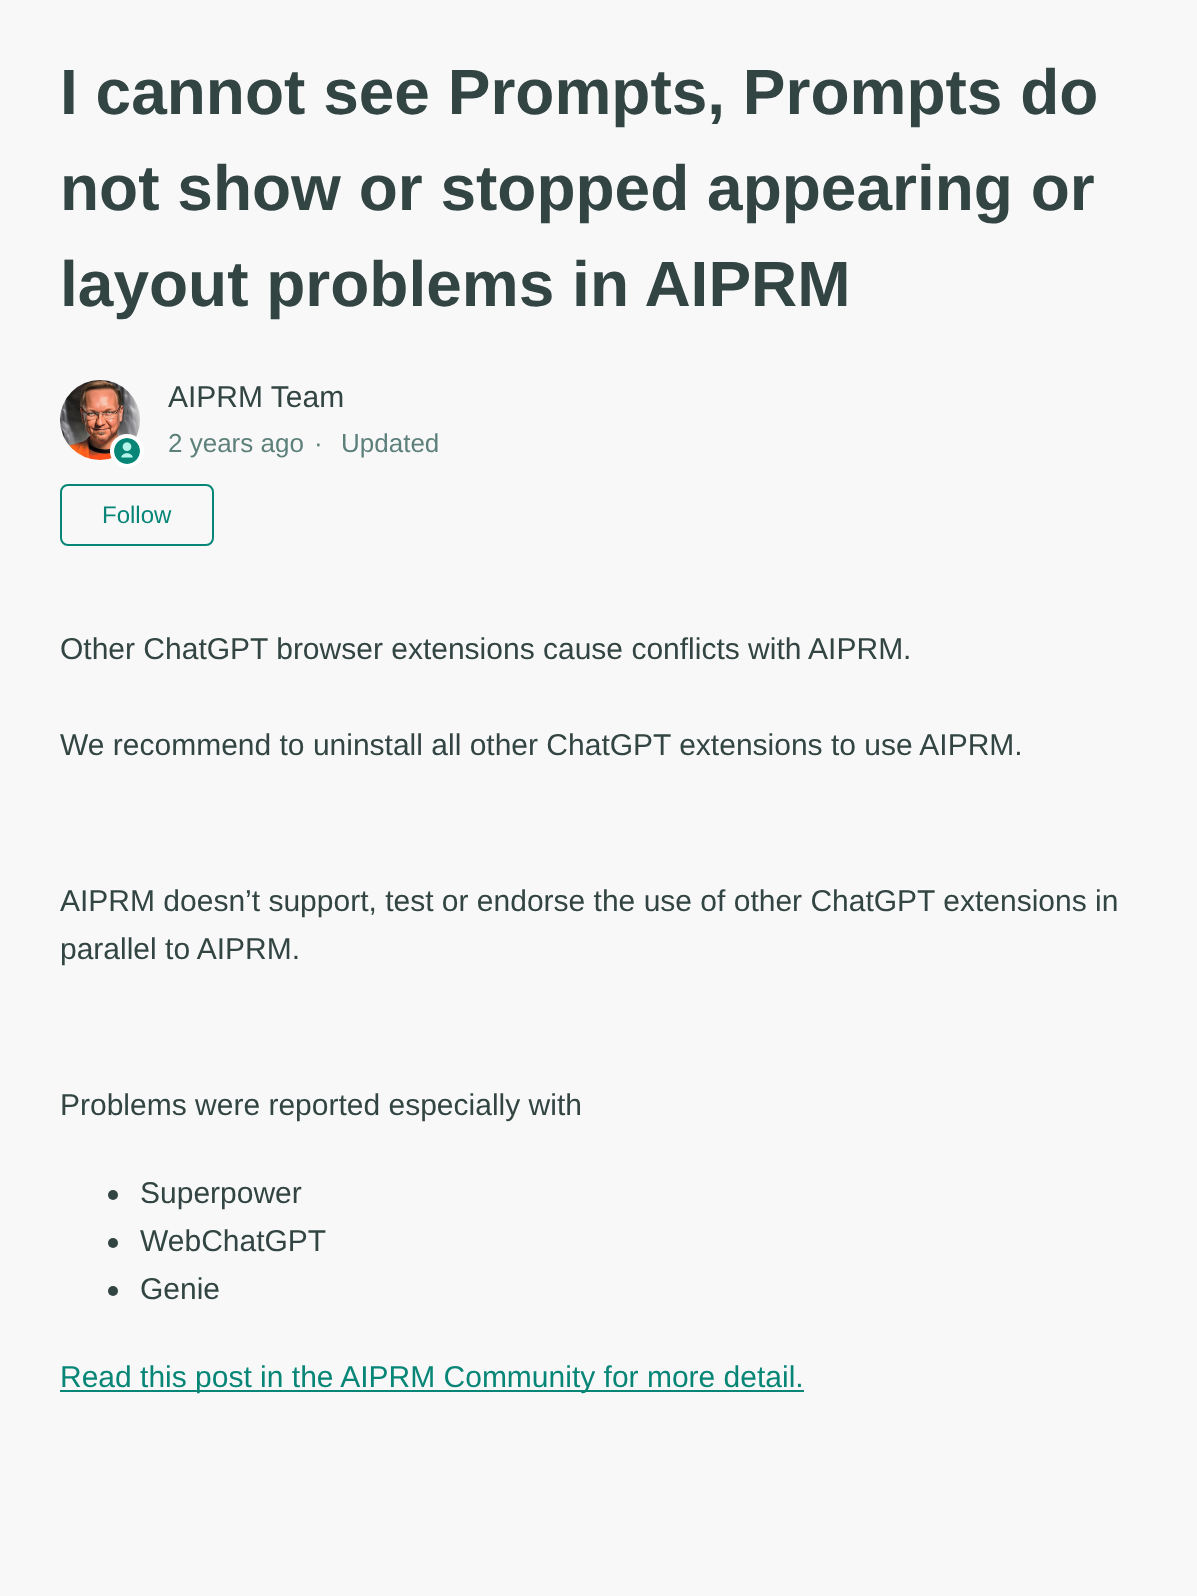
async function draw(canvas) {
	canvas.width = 1197;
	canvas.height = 1596;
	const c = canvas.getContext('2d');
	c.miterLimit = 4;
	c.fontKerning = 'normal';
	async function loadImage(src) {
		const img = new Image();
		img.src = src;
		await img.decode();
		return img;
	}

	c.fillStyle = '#f8f8f8';
	c.fillRect(0, 0, 1197, 1596);
	c.font = 'bold 64px Liberation Sans';
	c.fillStyle = '#324542';
	for (const [text, x, y] of [
		['I cannot see Prompts, Prompts do', 60, 114],
		['not show or stopped appearing or', 60, 210],
		['layout problems in AIPRM', 60, 306],
	]) {
		c.fillText(text, x, y);
	}
	c.drawImage(await loadImage('img1.png'), 60, 380, 80, 80);
	c.fillStyle = '#b4f5eb';
	c.beginPath();
	c.arc(127, 451, 15, 0, 2 * Math.PI);
	c.fill();
	c.strokeStyle = '#fff';
	c.lineWidth = 4;
	c.stroke();
	c.drawImage(await loadImage('img2.png'), 114, 438, 26, 26);
	c.font = '30px Liberation Sans';
	c.fillStyle = '#324542';
	c.fillText('AIPRM Team', 168, 407);
	c.font = '26px Liberation Sans';
	c.fillStyle = '#5d807b';
	for (const [text, x, y] of [
		['2 years ago', 168, 452],
		['·', 314, 452],
		['Updated', 341, 452],
	]) {
		c.fillText(text, x, y);
	}
	c.beginPath();
	c.roundRect(61, 485, 152, 60, 7);
	c.strokeStyle = '#078677';
	c.lineWidth = 2;
	c.stroke();
	c.font = '24px Liberation Sans';
	c.fillStyle = '#078677';
	c.fillText('Follow', 102, 523);
	c.font = '30px Liberation Sans';
	c.fillStyle = '#324542';
	for (const [text, x, y] of [
		['Other ChatGPT browser extensions cause conflicts with AIPRM.', 60, 659],
		['We recommend to uninstall all other ChatGPT extensions to use AIPRM.', 60, 755],
		['AIPRM doesn’t support, test or endorse the use of other ChatGPT extensions in', 60, 911],
		['parallel to AIPRM.', 60, 959],
		['Problems were reported especially with', 60, 1115],
	]) {
		c.fillText(text, x, y);
	}
	c.beginPath();
	c.arc(113, 1195, 5, 0, 2 * Math.PI);
	c.fill();
	c.fillText('Superpower', 140, 1203);
	c.beginPath();
	c.arc(113, 1243, 5, 0, 2 * Math.PI);
	c.fill();
	c.fillText('WebChatGPT', 140, 1251);
	c.beginPath();
	c.arc(113, 1291, 5, 0, 2 * Math.PI);
	c.fill();
	c.fillText('Genie', 140, 1299);
	c.fillStyle = '#078677';
	c.fillRect(60, 1390, 744, 2);
	c.fillText('Read this post in the AIPRM Community for more detail.', 60, 1387);
}

draw(document.querySelector('canvas'));
